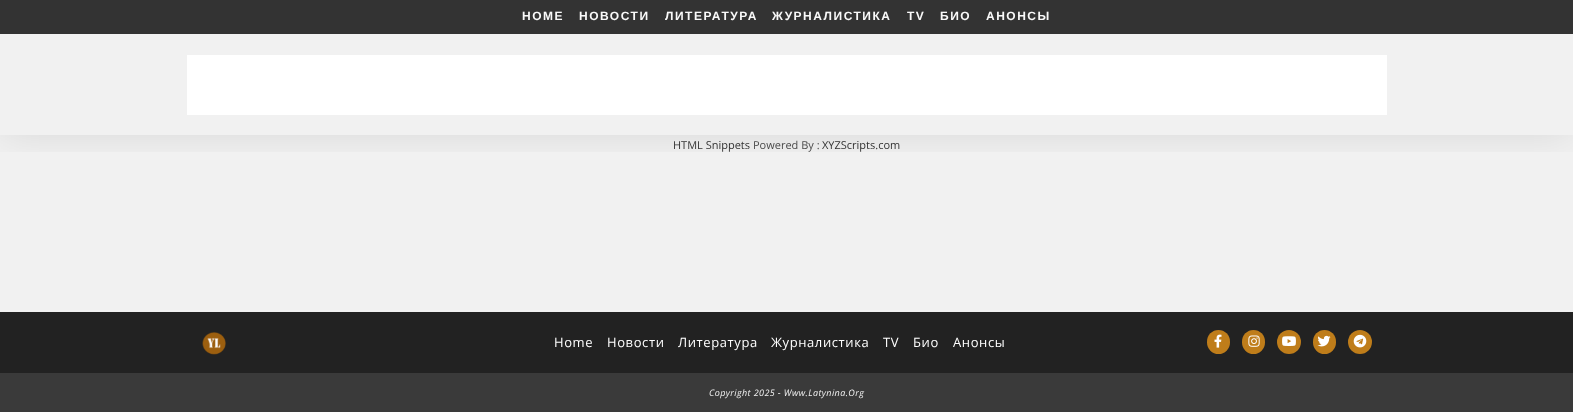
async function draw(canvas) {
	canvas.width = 1573;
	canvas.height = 412;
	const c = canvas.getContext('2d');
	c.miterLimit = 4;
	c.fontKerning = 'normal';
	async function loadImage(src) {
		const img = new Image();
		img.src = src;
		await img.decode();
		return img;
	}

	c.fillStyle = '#f1f1f1';
	c.fillRect(0, 0, 1573, 412);
	c.save();
	c.beginPath();
	c.rect(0, 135, 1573, 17);
	c.clip();
	c.fillStyle = '#0000001a';
	c.filter = 'blur(20px)';
	c.beginPath();
	c.rect(0, 35, 1573, 100);
	c.fill();
	c.filter = 'none';
	c.restore();
	for (const [x, y, w, h, color] of [
		[187, 55, 1200, 60, '#fff'],
		[0, 0, 1573, 34, '#333'],
		[0, 34, 1573, 1, '#f1f1f1'],
	]) {
		c.fillStyle = color;
		c.fillRect(x, y, w, h);
	}
	c.letterSpacing = '1.5px';
	c.font = 'bold 12px Liberation Sans';
	c.fillStyle = '#f9f9f9';
	for (const [text, x, y] of [
		['HOME', 522, 20],
		['НОВОСТИ', 579, 20],
		['ЛИТЕРАТУРА', 665, 20],
		['ЖУРНАЛИСТИКА', 772, 20],
		['TV', 907, 20],
		['БИО', 940, 20],
		['АНОНСЫ', 986, 20],
	]) {
		c.fillText(text, x, y);
	}
	c.fillStyle = '#222';
	c.fillRect(0, 312, 1573, 61);
	c.drawImage(await loadImage('img1.png'), 202, 332, 24, 23);
	c.letterSpacing = '0.6px';
	c.font = '13px Open Sans';
	c.fillStyle = '#fff';
	for (const [text, x, y] of [
		['Home', 554, 347],
		['Новости', 607, 347],
		['Литература', 678, 347],
		['Журналистика', 771, 347],
		['TV', 883, 347],
		['Био', 913, 347],
		['Анонсы', 953, 347],
	]) {
		c.fillText(text, x, y);
	}
	c.fillStyle = '#bf7d1a';
	c.beginPath();
	c.roundRect(1207, 330, 23, 24, 11.5);
	c.fill();
	c.drawImage(await loadImage('img2.png'), 1214, 334, 8, 14);
	c.beginPath();
	c.roundRect(1242, 330, 23, 24, 11.5);
	c.fill();
	c.drawImage(await loadImage('img3.png'), 1248, 335, 12, 12);
	c.beginPath();
	c.arc(1289, 342, 12, 0, 2 * Math.PI);
	c.fill();
	c.drawImage(await loadImage('img4.png'), 1282, 336, 14, 10);
	c.beginPath();
	c.roundRect(1313, 330, 23, 24, 11.5);
	c.fill();
	c.drawImage(await loadImage('img5.png'), 1317, 335, 14, 12);
	c.beginPath();
	c.arc(1360, 342, 12, 0, 2 * Math.PI);
	c.fill();
	c.drawImage(await loadImage('img6.png'), 1353, 334, 14, 14);
	c.fillStyle = '#3a3a3a';
	c.fillRect(0, 373, 1573, 39);
	c.letterSpacing = '0.4px';
	c.font = 'italic 9px Open Sans';
	c.fillStyle = '#f2f2f2';
	c.fillText('Copyright 2025 - Www.Latynina.Org', 709, 396);
	c.letterSpacing = '0px';
	c.font = '11px Open Sans';
	c.fillStyle = '#333';
	c.fillText('HTML Snippets', 673, 149);
	c.fillStyle = '#4a4a4a';
	c.fillText('Powered By :', 753, 149);
	c.fillStyle = '#333';
	c.fillText('XYZScripts.com', 822, 149);
}

draw(document.querySelector('canvas'));
